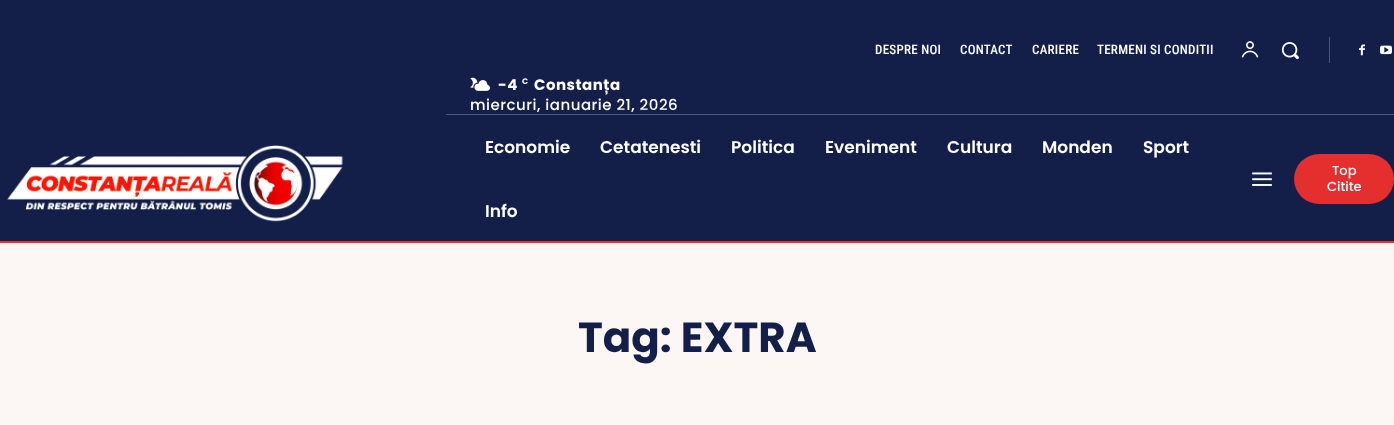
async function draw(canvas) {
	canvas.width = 1394;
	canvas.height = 425;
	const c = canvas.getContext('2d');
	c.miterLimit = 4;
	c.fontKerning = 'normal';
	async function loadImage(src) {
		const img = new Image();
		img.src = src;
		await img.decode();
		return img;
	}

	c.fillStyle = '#fcf7f5';
	c.fillRect(0, 0, 1394, 425);
	c.fillStyle = '#131f49';
	c.fillRect(0, 0, 1394, 241);
	c.drawImage(await loadImage('img1.png'), 7, 145, 336, 77);
	c.letterSpacing = '0.25px';
	c.font = '500 13px Roboto Condensed';
	c.fillStyle = '#fff';
	for (const [text, x, y] of [
		['DESPRE NOI', 875, 54],
		['CONTACT', 960, 54],
		['CARIERE', 1032, 54],
		['TERMENI SI CONDITII', 1097, 54],
	]) {
		c.fillText(text, x, y);
	}
	c.drawImage(await loadImage('img2.png'), 1241, 41, 18, 17);
	c.drawImage(await loadImage('img3.png'), 1281, 42, 18, 18);
	c.fillStyle = '#4e5777';
	c.fillRect(1329, 37, 1, 26);
	c.drawImage(await loadImage('img4.png'), 1359, 44, 6, 12);
	c.drawImage(await loadImage('img5.png'), 1380, 45, 12, 10);
	c.drawImage(await loadImage('img6.png'), 470, 77, 20, 14);
	c.letterSpacing = '0.5px';
	c.font = 'bold 15px Poppins';
	c.fillStyle = '#fff';
	c.fillText('-4', 498, 90);
	c.font = 'bold 8px Poppins';
	c.fillText('C', 522, 84);
	c.font = 'bold 15px Poppins';
	c.fillText('Constanța', 534, 90);
	c.font = '500 15px Poppins';
	c.fillText('miercuri, ianuarie 21, 2026', 470, 110);
	c.fillStyle = '#4e5777';
	c.fillRect(446, 114, 948, 1);
	c.letterSpacing = '0px';
	c.font = '600 17px Poppins';
	c.fillStyle = '#fff';
	for (const [text, x, y] of [
		['Economie', 485, 153],
		['Cetatenesti', 600, 153],
		['Politica', 731, 153],
		['Eveniment', 825, 153],
		['Cultura', 947, 153],
		['Monden', 1042, 153],
		['Sport', 1143, 153],
		['Info', 485, 217],
	]) {
		c.fillText(text, x, y);
	}
	c.drawImage(await loadImage('img7.png'), 1252, 172, 20, 14);
	c.fillStyle = '#e52e2e';
	c.beginPath();
	c.roundRect(1294, 154, 100, 50, 25);
	c.fill();
	c.font = '500 13px Poppins';
	c.fillStyle = '#fff';
	c.fillText('Top', 1332, 175);
	c.fillText('Citite', 1327, 191);
	c.fillStyle = '#e52e2e';
	c.fillRect(0, 241, 1394, 2);
	c.font = 'bold 42px Poppins';
	c.fillStyle = '#131f49';
	c.fillText('Tag: EXTRA', 578, 352);
}

draw(document.querySelector('canvas'));
